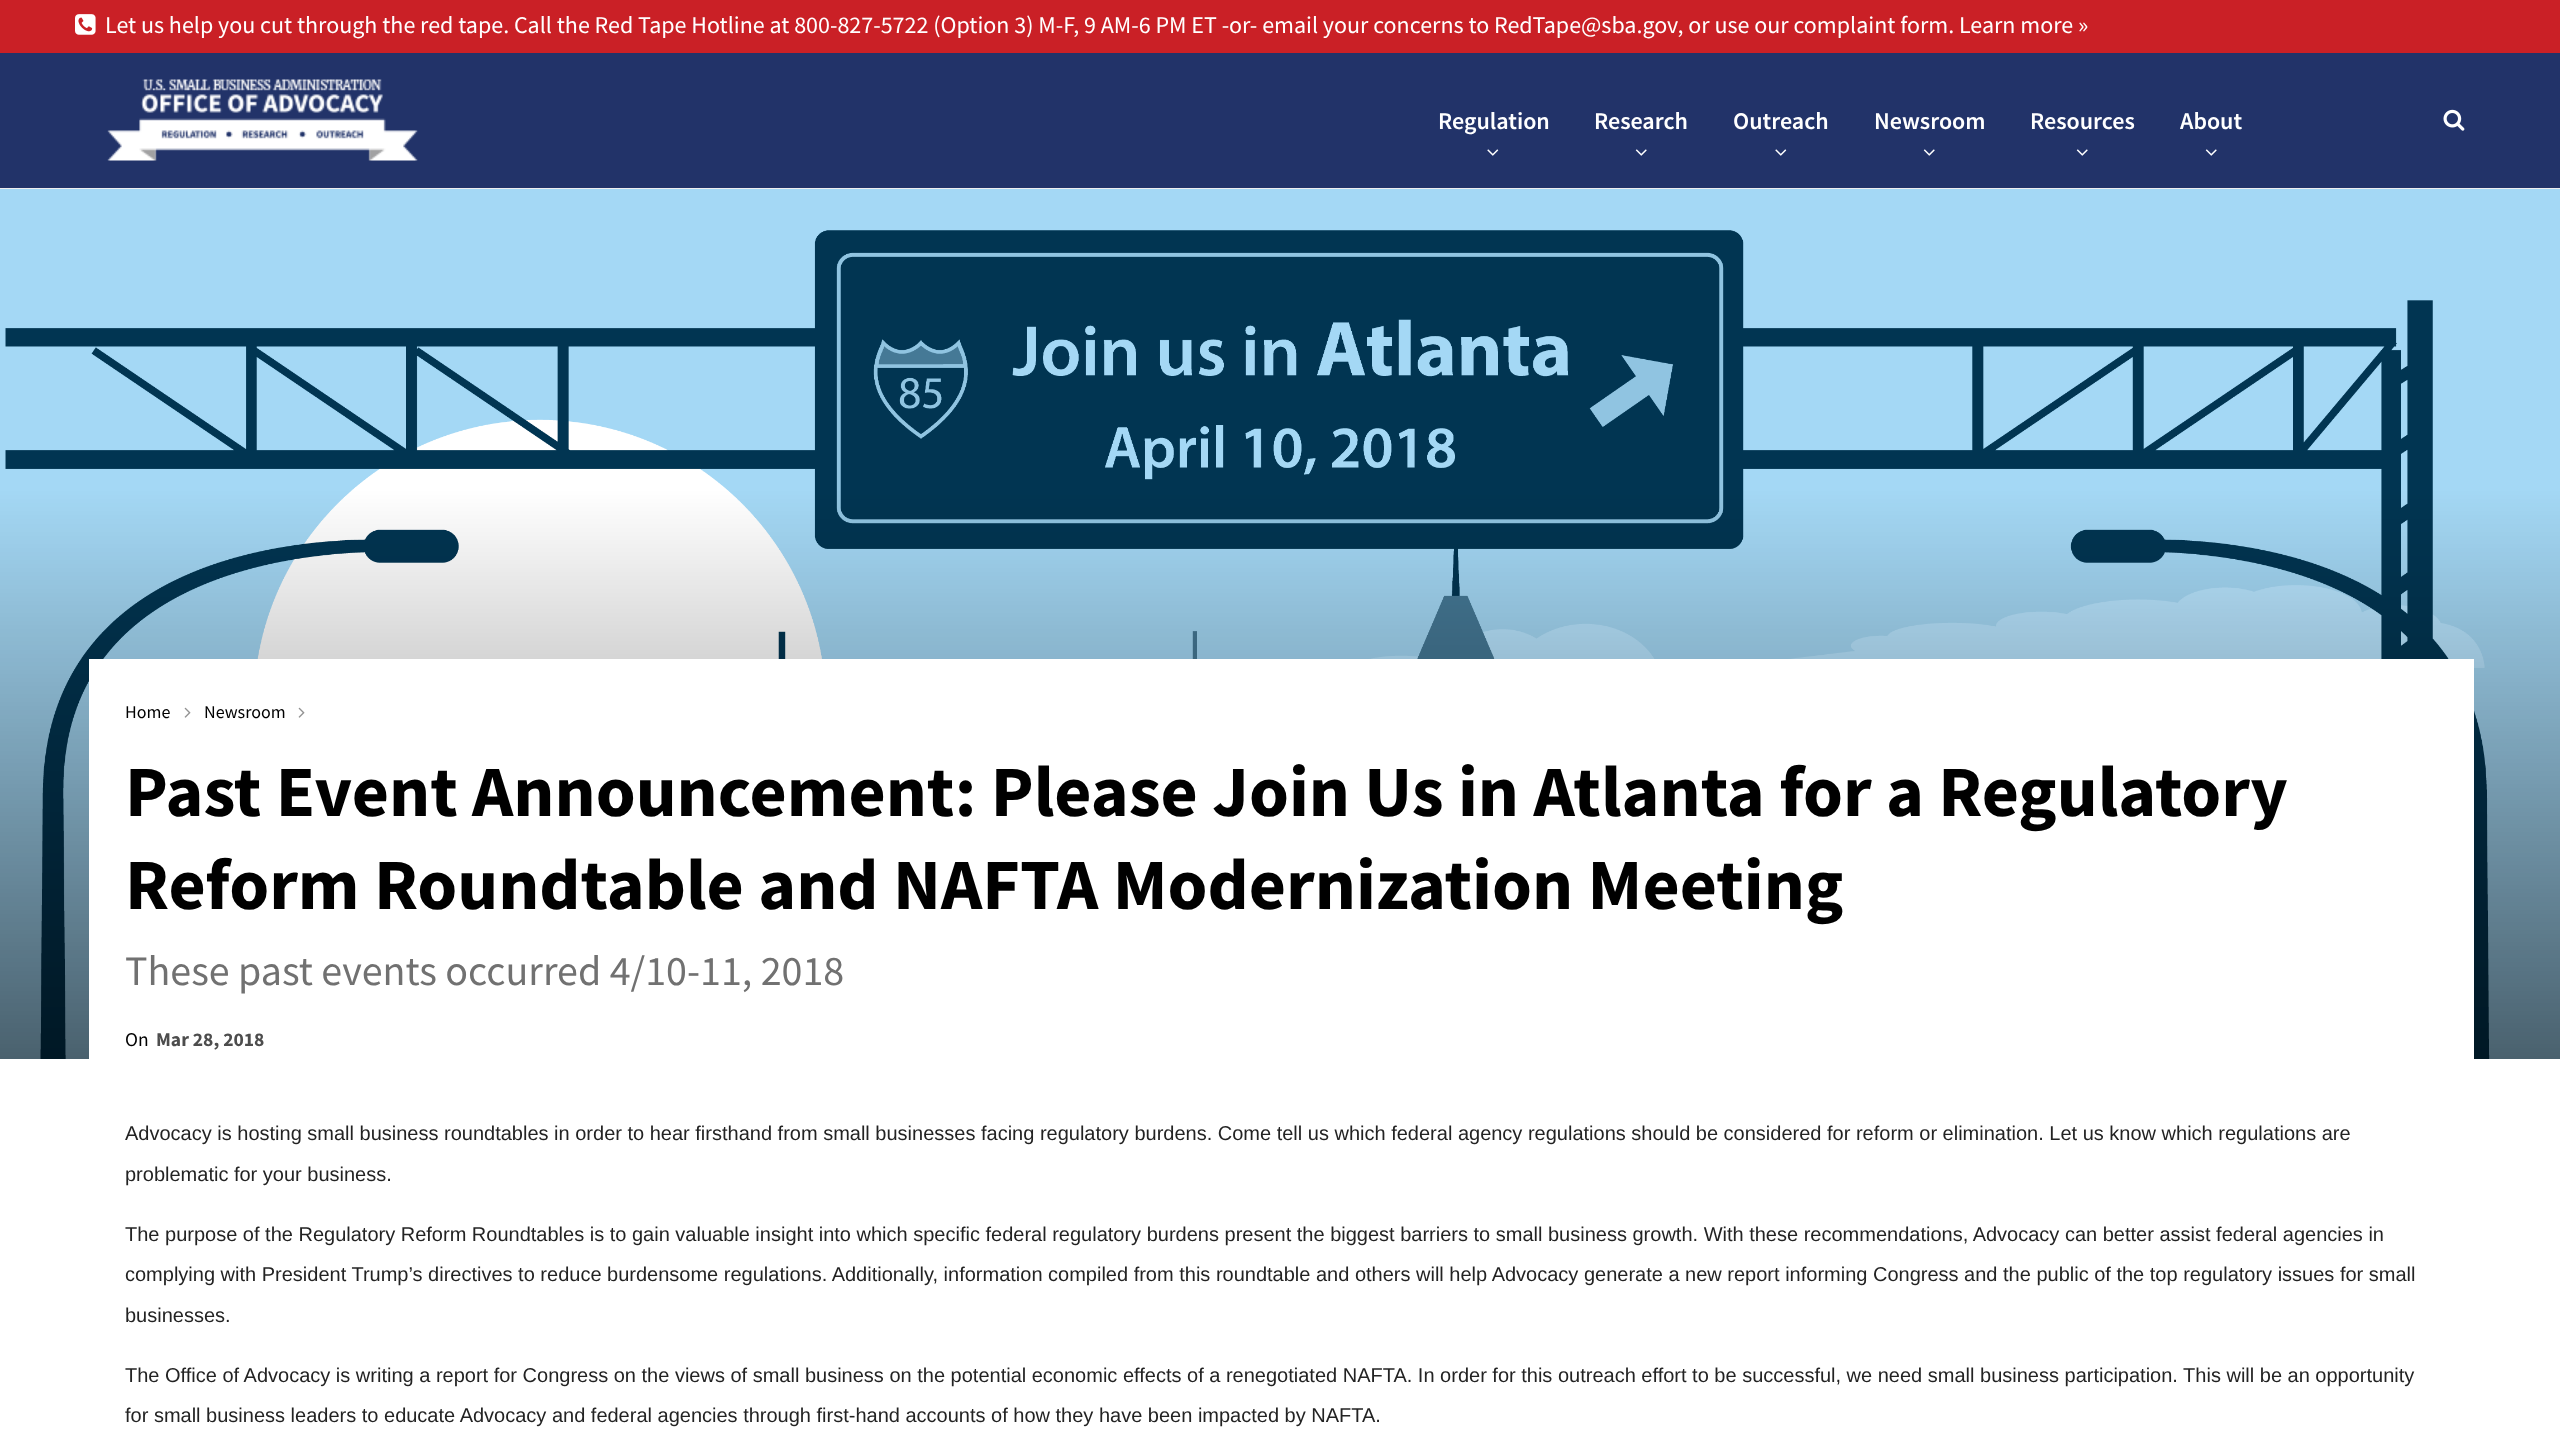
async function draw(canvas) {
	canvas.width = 2560;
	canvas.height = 1451;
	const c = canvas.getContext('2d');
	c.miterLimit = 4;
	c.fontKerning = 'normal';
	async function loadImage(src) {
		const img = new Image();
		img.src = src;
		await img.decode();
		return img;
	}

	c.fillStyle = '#fff';
	c.fillRect(0, 0, 2560, 1451);
	for (const [x, y, w, h, color] of [
		[0, 53, 2560, 135, '#223369'],
		[0, 188, 2560, 1, '#eee'],
		[0, 0, 2560, 53, '#ca2026'],
	]) {
		c.fillStyle = color;
		c.fillRect(x, y, w, h);
	}
	c.drawImage(await loadImage('img1.png'), 75, 14, 21, 21);
	c.font = '24px Source Sans Pro';
	c.fillStyle = '#fff';
	c.fillText('Let us help you cut through the red tape. Call the Red Tape Hotline at 800-827-5722 (Option 3) M-F, 9 AM-6 PM ET -or- email your concerns to RedTape@sba.gov, or use our complaint form. Learn more »', 105, 33);
	c.drawImage(await loadImage('img2.png'), 107, 79, 311, 82);
	c.font = '600 24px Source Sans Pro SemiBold';
	c.fillText('Regulation', 1438, 129);
	c.drawImage(await loadImage('img3.png'), 1487, 149, 12, 7);
	c.fillText('Research', 1594, 129);
	c.drawImage(await loadImage('img4.png'), 1635, 149, 12, 7);
	c.fillText('Outreach', 1733, 129);
	c.drawImage(await loadImage('img3.png'), 1775, 149, 12, 7);
	c.fillText('Newsroom', 1874, 129);
	c.drawImage(await loadImage('img4.png'), 1923, 149, 12, 7);
	c.fillText('Resources', 2030, 129);
	c.drawImage(await loadImage('img4.png'), 2076, 149, 12, 7);
	c.fillText('About', 2180, 129);
	c.drawImage(await loadImage('img4.png'), 2205, 149, 12, 7);
	c.drawImage(await loadImage('img5.png'), 2443, 109, 22, 22);
	c.drawImage(await loadImage('img6.png'), 0, 189, 2560, 870);
	c.fillRect(89, 659, 2385, 400);
	c.font = '18px Source Sans Pro';
	c.fillStyle = '#000';
	c.fillText('Home', 125, 718);
	c.drawImage(await loadImage('img7.png'), 184, 707, 7, 11);
	c.fillText('Newsroom', 204, 718);
	c.drawImage(await loadImage('img7.png'), 298, 707, 7, 11);
	c.font = 'bold 72px Source Sans Pro';
	c.fillText('Past Event Announcement: Please Join Us in Atlanta for a Regulatory', 125, 816);
	c.fillText('Reform Roundtable and NAFTA Modernization Meeting', 125, 909);
	c.font = '42px Source Sans Pro';
	c.fillStyle = '#717171';
	c.fillText('These past events occurred 4/10-11, 2018', 125, 985);
	c.font = '19.5px Source Sans Pro';
	c.fillStyle = '#000';
	c.fillText('On', 125, 1046);
	c.font = 'bold 19.5px Source Sans Pro';
	c.fillStyle = '#4d4d4d';
	c.fillText('Mar 28, 2018', 156, 1046);
	c.font = '20px Liberation Sans';
	c.fillStyle = '#232323';
	for (const [text, x, y] of [
		['Advocacy is hosting small business roundtables in order to hear firsthand from small businesses facing regulatory burdens. Come tell us which federal agency regulations should be considered for reform or elimination. Let us know which regulations are', 125, 1140],
		['problematic for your business.', 125, 1181],
		['The purpose of the Regulatory Reform Roundtables is to gain valuable insight into which specific federal regulatory burdens present the biggest barriers to small business growth. With these recommendations, Advocacy can better assist federal agencies in', 125, 1241],
		['complying with President Trump’s directives to reduce burdensome regulations. Additionally, information compiled from this roundtable and others will help Advocacy generate a new report informing Congress and the public of the top regulatory issues for small', 125, 1281],
		['businesses.', 125, 1322],
		['The Office of Advocacy is writing a report for Congress on the views of small business on the potential economic effects of a renegotiated NAFTA. In order for this outreach effort to be successful, we need small business participation. This will be an opportunity', 125, 1382],
		['for small business leaders to educate Advocacy and federal agencies through first-hand accounts of how they have been impacted by NAFTA.', 125, 1422],
	]) {
		c.fillText(text, x, y);
	}
}

draw(document.querySelector('canvas'));
